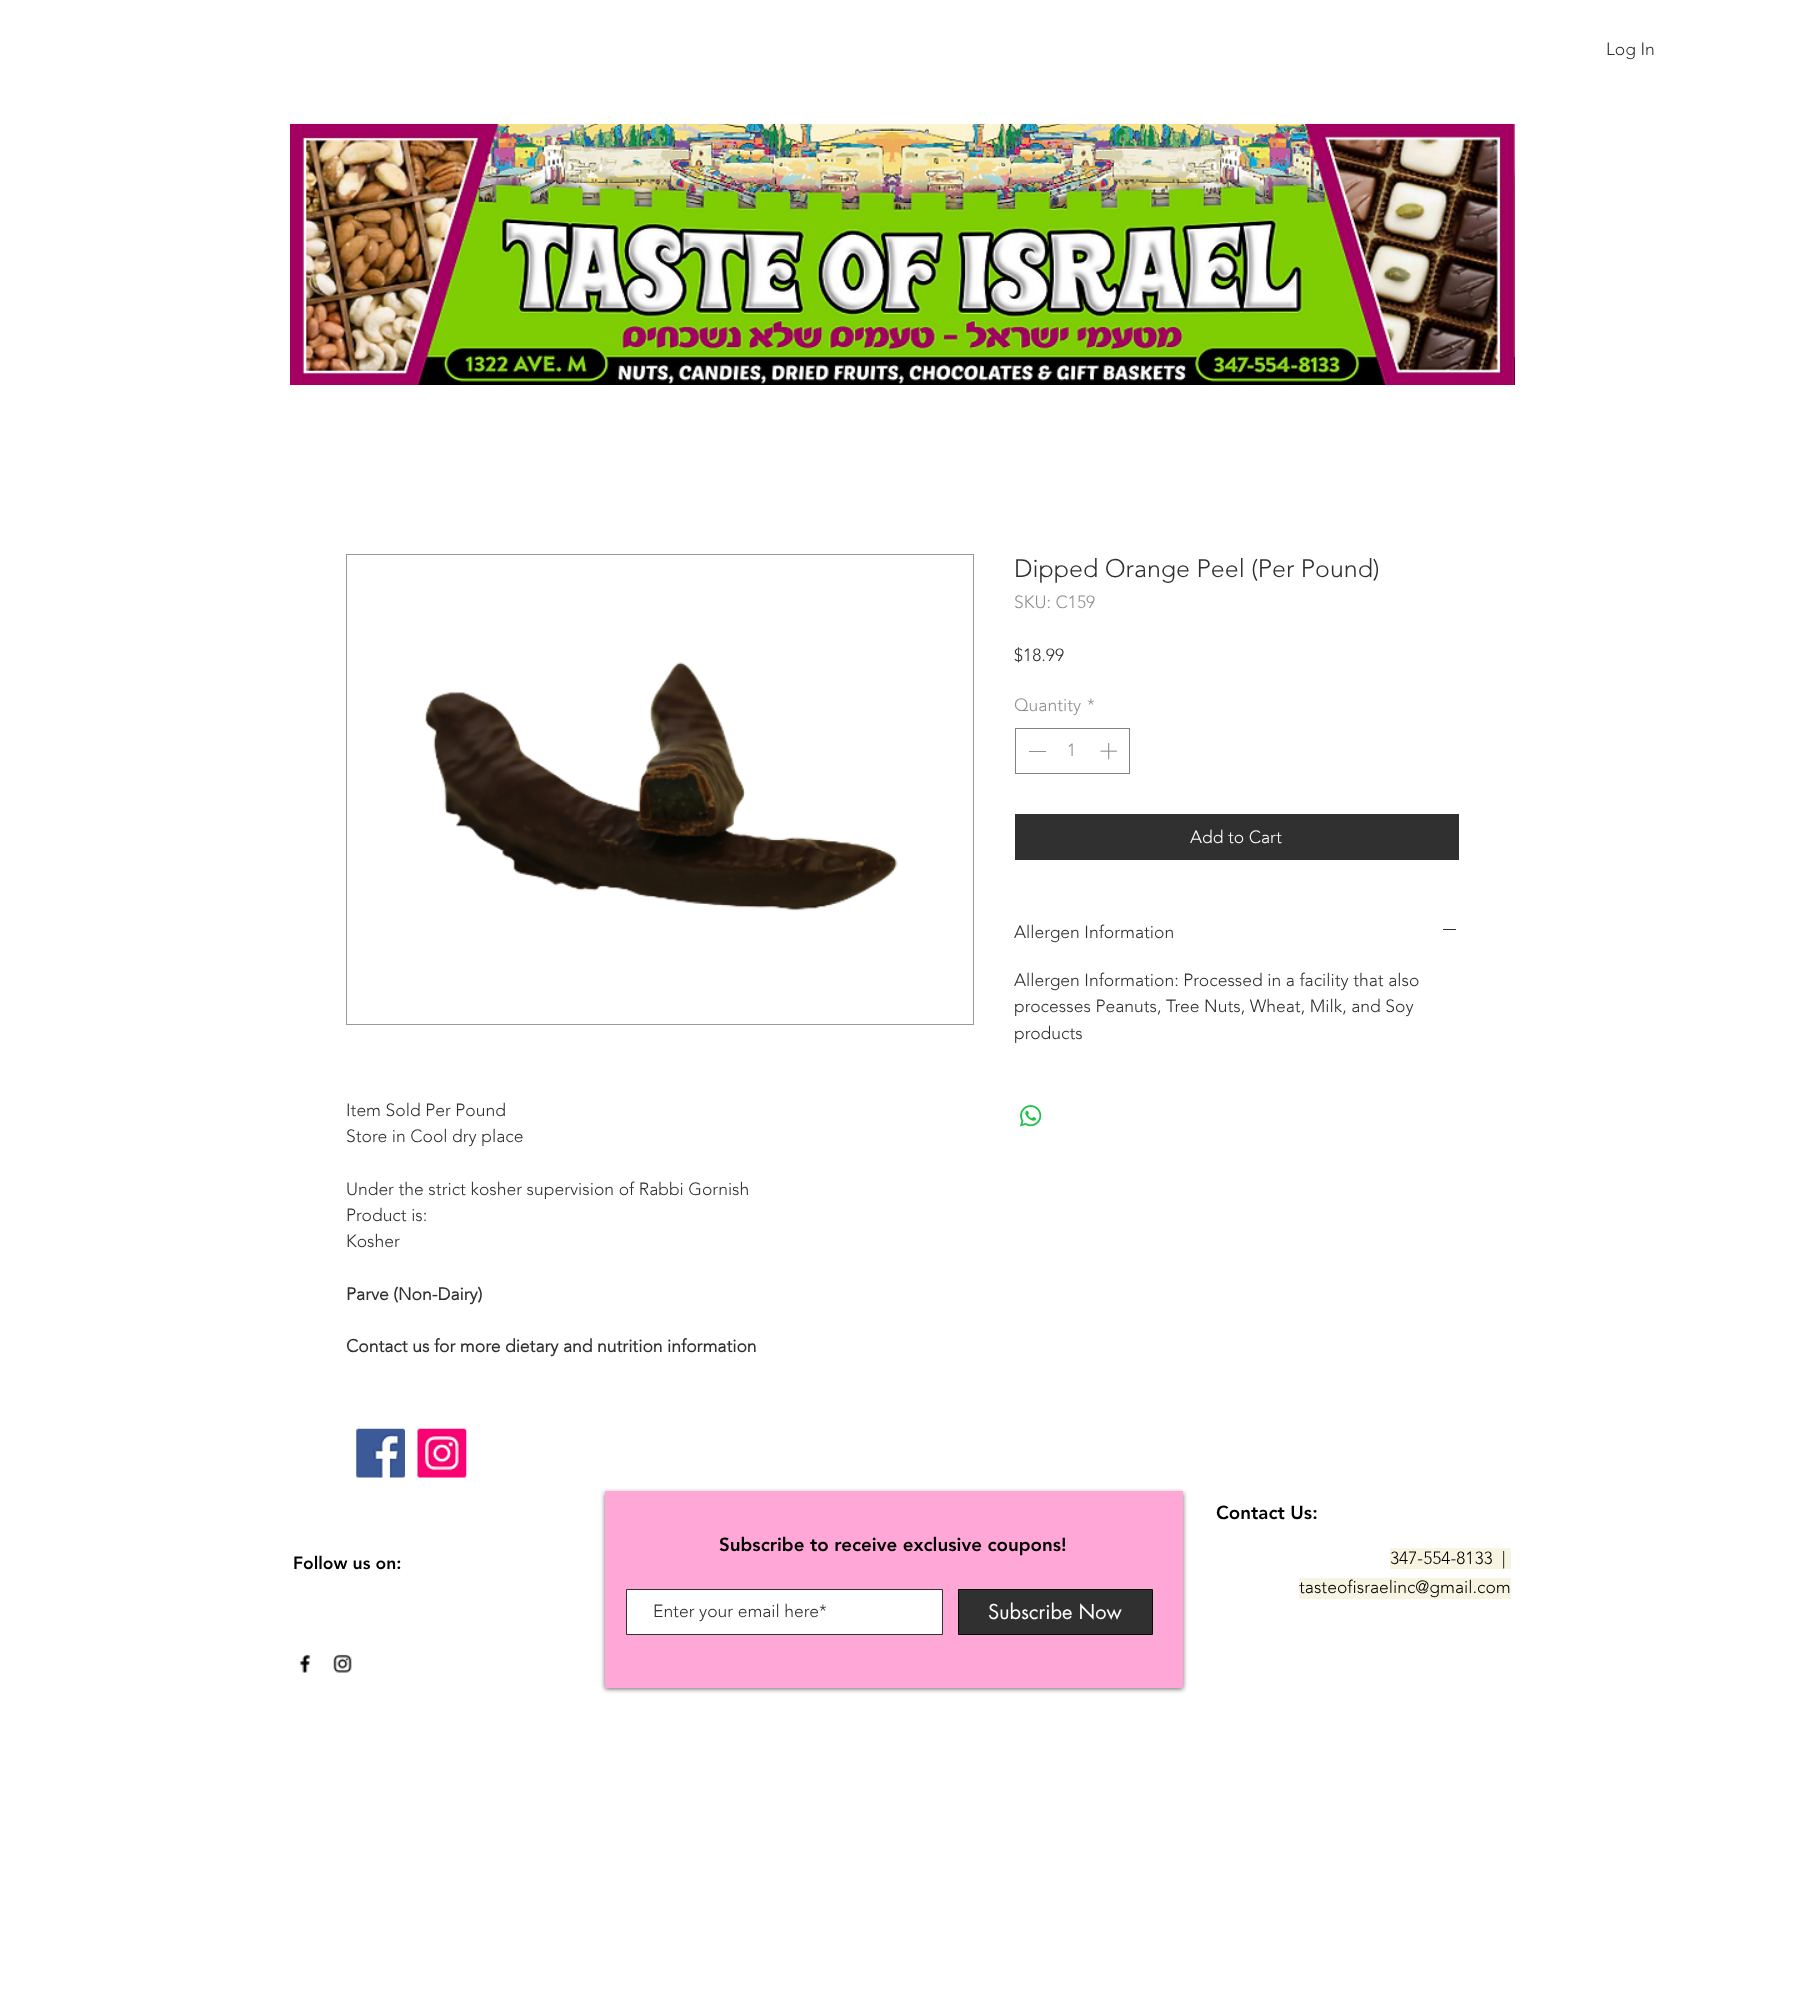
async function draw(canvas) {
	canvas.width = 1803;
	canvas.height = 2013;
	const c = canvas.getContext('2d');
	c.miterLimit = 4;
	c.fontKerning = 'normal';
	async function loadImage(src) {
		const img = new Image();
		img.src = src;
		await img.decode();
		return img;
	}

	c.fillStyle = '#fff';
	c.fillRect(0, 0, 1803, 2013);
	c.font = '300 17.5px "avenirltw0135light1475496"';
	c.fillStyle = '#303030';
	c.fillText('Log In', 1606, 55);
	c.drawImage(await loadImage('img1.png'), 290, 123, 1225, 262);
	c.font = '300 25px "avenirltw0135light1475496"';
	c.fillText('Dipped Orange Peel (Per Pound)', 1014, 577);
	c.font = '300 17.5px "avenirltw0135light1475496"';
	c.fillStyle = '#8f8f8f';
	c.fillText('SKU: C159', 1014, 608);
	c.fillStyle = '#303030';
	c.fillText('$18.99', 1014, 661);
	c.fillStyle = '#8f8f8f';
	c.fillText('Quantity', 1014, 711);
	c.fillText('*', 1087, 711);
	c.strokeStyle = '#838383';
	c.strokeRect(1015.5, 728.5, 114, 45);
	c.fillRect(1029, 751, 17, 1);
	c.fillText('1', 1067, 756);
	c.drawImage(await loadImage('img2.png'), 1100, 743, 17, 17);
	c.fillStyle = '#303030';
	c.fillRect(1015, 814, 444, 46);
	c.fillStyle = '#fff';
	c.fillText('Add to Cart', 1190, 843);
	c.fillStyle = '#303030';
	c.fillText('Allergen Information', 1014, 938);
	c.fillRect(1443, 929, 13, 1);
	for (const [text, x, y] of [
		['Allergen Information: Processed in a facility that also', 1014, 986],
		['processes Peanuts, Tree Nuts, Wheat, Milk, and Soy', 1014, 1012],
		['products', 1014, 1039],
	]) {
		c.fillText(text, x, y);
	}
	c.drawImage(await loadImage('img3.png'), 1020, 1105, 22, 22);
	c.strokeStyle = '#999';
	c.strokeRect(346.5, 554.5, 627, 470);
	c.drawImage(await loadImage('img4.png'), 425, 662, 473, 249);
	for (const [text, x, y] of [
		['Item Sold Per Pound', 346, 1116],
		['Store in Cool dry place', 346, 1142],
		['Under the strict kosher supervision of Rabbi Gornish', 346, 1195],
		['Product is:', 346, 1221],
		['Kosher', 346, 1247],
	]) {
		c.fillText(text, x, y);
	}
	c.font = 'bold 17.5px "avenirltw0135light1475496"';
	c.fillText('Parve (Non-Dairy)', 346, 1300);
	c.fillText('Contact us for more dietary and nutrition information', 346, 1352);
	c.drawImage(await loadImage('img5.png'), 356, 1428, 49, 50);
	c.drawImage(await loadImage('img6.png'), 417, 1428, 50, 50);
	c.font = '900 18.75px "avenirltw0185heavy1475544"';
	c.fillStyle = '#000';
	c.fillText('Contact Us:', 1216, 1519);
	c.font = '900 17.5px "avenirltw0185heavy1475544"';
	c.fillText('Follow us on:', 293, 1569);
	c.save();
	c.beginPath();
	c.moveTo(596, 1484);
	c.lineTo(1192, 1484);
	c.lineTo(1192, 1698);
	c.lineTo(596, 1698);
	c.closePath();
	c.moveTo(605, 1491);
	c.lineTo(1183, 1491);
	c.lineTo(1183, 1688);
	c.lineTo(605, 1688);
	c.closePath();
	c.clip('evenodd');
	c.fillStyle = '#00000099';
	c.filter = 'blur(2.5px)';
	c.beginPath();
	c.rect(605, 1493, 578, 196);
	c.fill();
	c.filter = 'none';
	c.restore();
	c.fillStyle = '#ff85c8b5';
	c.fillRect(605, 1491, 578, 197);
	c.font = '900 18.75px "avenirltw0185heavy1475544"';
	c.fillStyle = '#000';
	c.fillText('Subscribe to receive exclusive coupons!', 719, 1551);
	c.fillStyle = '#fff';
	c.beginPath();
	c.rect(626.5, 1589.5, 316, 45);
	c.fill();
	c.strokeStyle = '#303030';
	c.stroke();
	c.font = '300 17.5px "avenirltw0135light1475496"';
	c.fillStyle = '#303030';
	c.fillText('Enter your email here*', 653, 1617);
	c.beginPath();
	c.rect(958.5, 1589.5, 194, 45);
	c.fill();
	c.strokeStyle = '#000';
	c.stroke();
	c.font = '20px futura';
	c.fillStyle = '#fff';
	c.fillText('Subscribe Now', 988, 1619);
	c.fillStyle = '#f7f5e1';
	c.fillRect(1390, 1548, 121, 21);
	c.font = '300 17.5px "avenirltw0135light1475496"';
	c.fillStyle = '#000';
	c.fillText('347-554-8133  |', 1390, 1564);
	c.fillStyle = '#f7f5e1';
	c.fillRect(1299, 1578, 212, 21);
	c.fillStyle = '#000';
	c.fillText('tasteofisraelinc@gmail.com', 1299, 1593);
	c.drawImage(await loadImage('img7.png'), 299, 1654, 12, 19);
	c.drawImage(await loadImage('img8.png'), 333, 1654, 19, 19);
}

draw(document.querySelector('canvas'));
